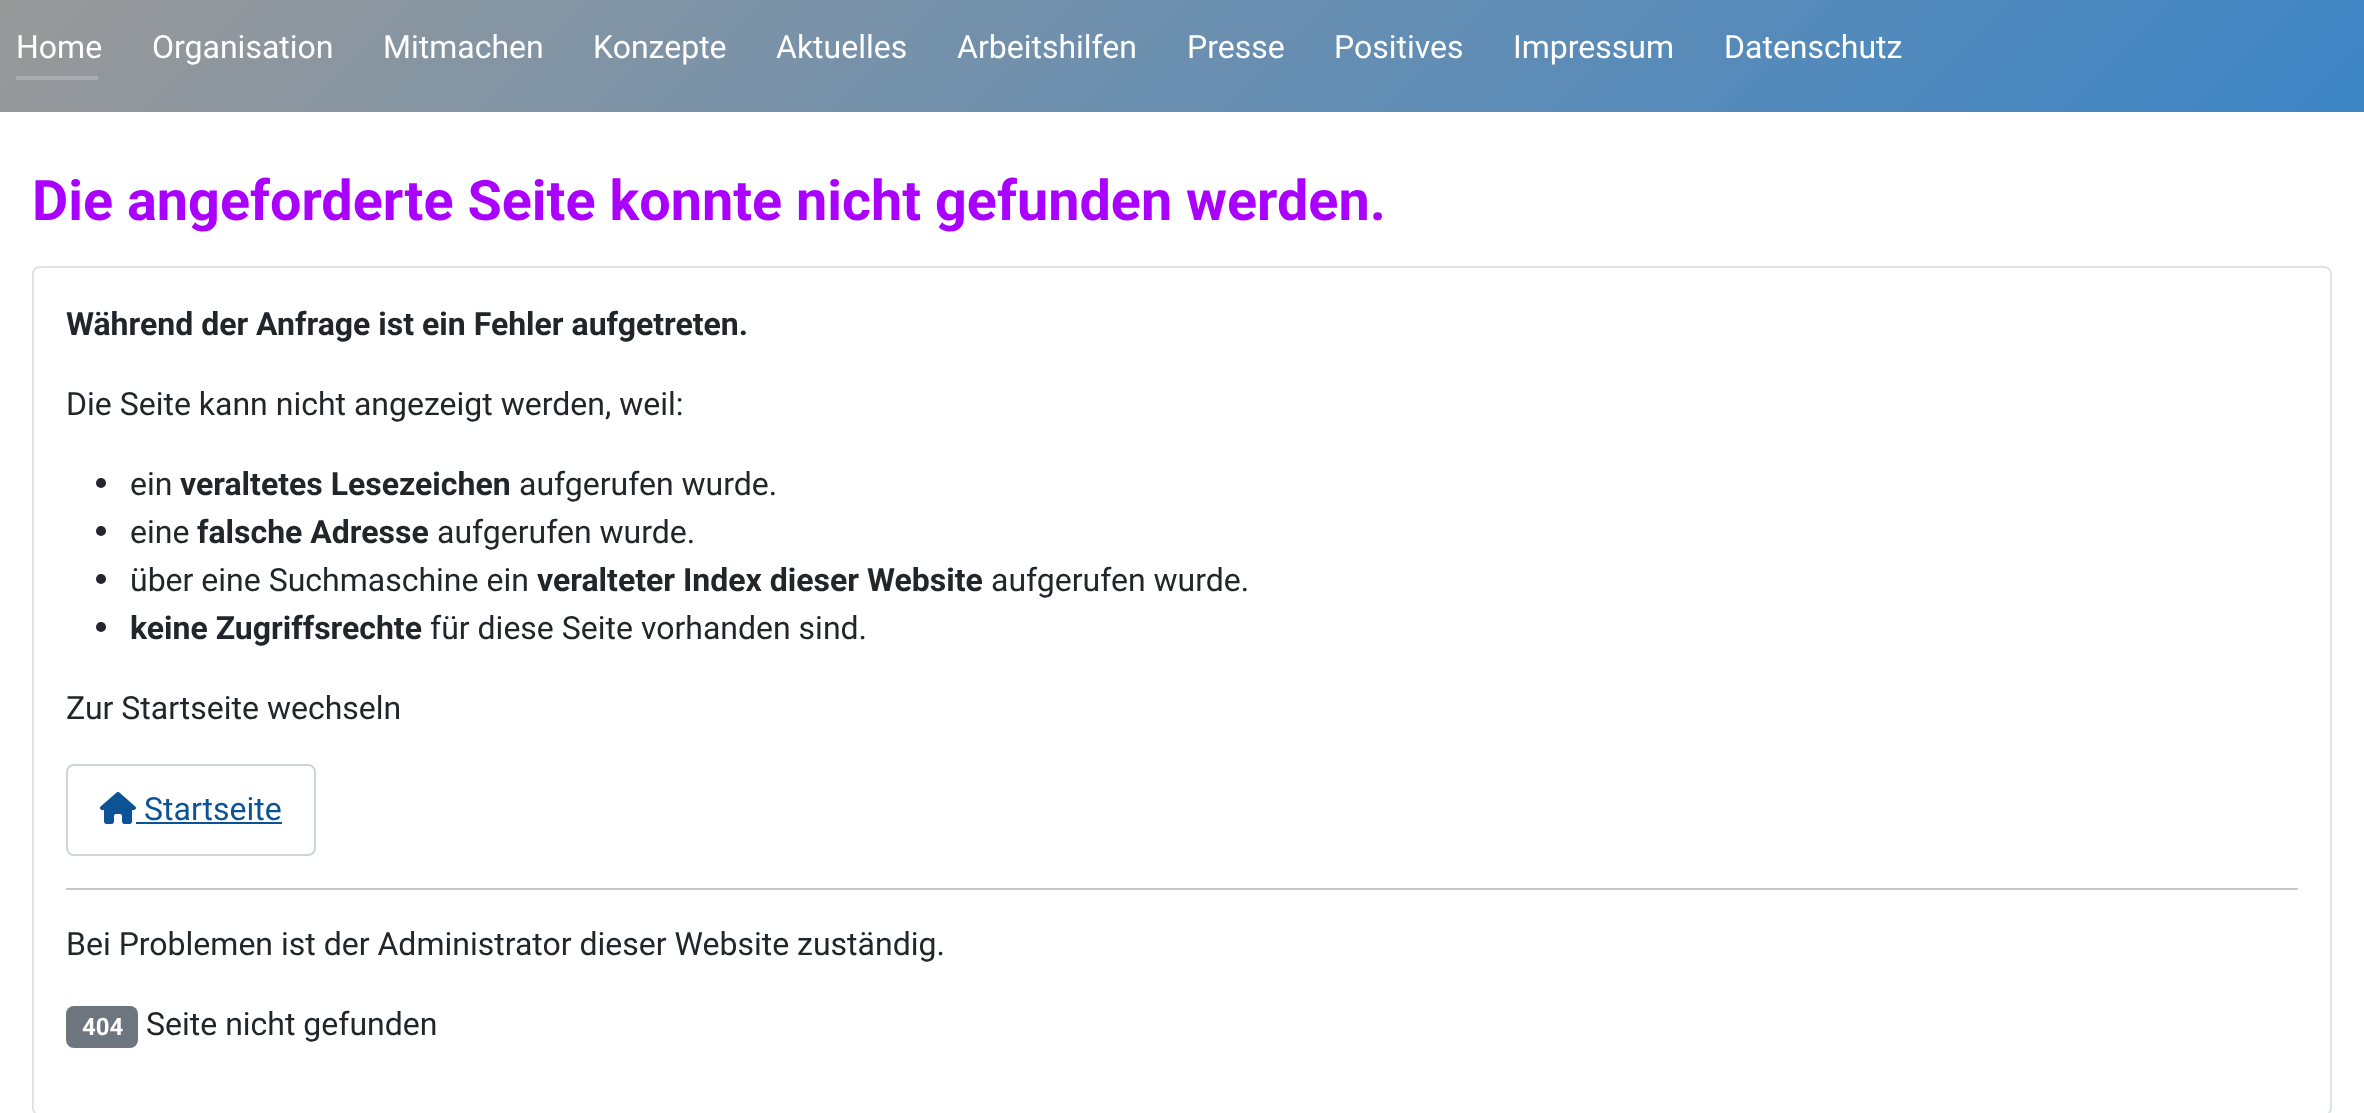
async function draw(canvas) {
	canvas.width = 2364;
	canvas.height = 1113;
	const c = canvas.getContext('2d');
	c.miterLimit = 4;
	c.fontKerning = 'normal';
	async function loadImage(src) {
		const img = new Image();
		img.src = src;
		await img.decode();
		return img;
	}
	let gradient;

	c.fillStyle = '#fff';
	c.fillRect(0, 0, 2364, 1113);
	gradient = c.createLinearGradient(563, -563, 1801, 675);
	gradient.addColorStop(0, '#999');
	gradient.addColorStop(1, '#3d85c6');
	c.fillStyle = gradient;
	c.fillRect(0, 0, 2364, 112);
	gradient = c.createLinearGradient(563, -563, 1801, 675);
	gradient.addColorStop(0, '#adadad');
	gradient.addColorStop(1, '#649dd1');
	c.fillStyle = gradient;
	c.fillRect(16, 76, 82, 4);
	c.font = '32px Roboto';
	c.fillStyle = '#fff';
	for (const [text, x, y] of [
		['Home', 16, 58],
		['Organisation', 152, 58],
		['Mitmachen', 383, 58],
		['Konzepte', 593, 58],
		['Aktuelles', 776, 58],
		['Arbeitshilfen', 957, 58],
		['Presse', 1187, 58],
		['Positives', 1334, 58],
		['Impressum', 1513, 58],
		['Datenschutz', 1724, 58],
	]) {
		c.fillText(text, x, y);
	}
	c.font = 'bold 55.75px Roboto';
	c.fillStyle = '#a0f';
	c.fillText('Die angeforderte Seite konnte nicht gefunden werden.', 32, 220);
	c.beginPath();
	c.roundRect(33, 267, 2298, 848, 7);
	c.strokeStyle = '#dfe3e7';
	c.lineWidth = 2;
	c.stroke();
	c.font = 'bold 32px Roboto';
	c.fillStyle = '#22262a';
	c.fillText('Während der Anfrage ist ein Fehler aufgetreten.', 66, 335);
	c.font = '32px Roboto';
	c.fillText('Die Seite kann nicht angezeigt werden, weil:', 66, 415);
	c.beginPath();
	c.arc(101, 483, 5, 0, 2 * Math.PI);
	c.fill();
	c.fillText('ein', 130, 495);
	c.font = 'bold 32px Roboto';
	c.fillText('veraltetes Lesezeichen', 180, 495);
	c.font = '32px Roboto';
	c.fillText('aufgerufen wurde.', 519, 495);
	c.beginPath();
	c.arc(101, 531, 5, 0, 2 * Math.PI);
	c.fill();
	c.fillText('eine', 130, 543);
	c.font = 'bold 32px Roboto';
	c.fillText('falsche Adresse', 197, 543);
	c.font = '32px Roboto';
	c.fillText('aufgerufen wurde.', 437, 543);
	c.beginPath();
	c.arc(101, 579, 5, 0, 2 * Math.PI);
	c.fill();
	c.fillText('über eine Suchmaschine ein', 130, 591);
	c.font = 'bold 32px Roboto';
	c.fillText('veralteter Index dieser Website', 537, 591);
	c.font = '32px Roboto';
	c.fillText('aufgerufen wurde.', 991, 591);
	c.beginPath();
	c.arc(101, 627, 5, 0, 2 * Math.PI);
	c.fill();
	c.font = 'bold 32px Roboto';
	c.fillText('keine Zugriffsrechte', 130, 639);
	c.font = '32px Roboto';
	c.fillText('für diese Seite vorhanden sind.', 430, 639);
	c.fillText('Zur Startseite wechseln', 66, 719);
	c.beginPath();
	c.roundRect(67, 765, 248, 90, 7);
	c.strokeStyle = '#ced4da';
	c.stroke();
	c.drawImage(await loadImage('img1.png'), 100, 792, 36, 32);
	c.fillStyle = '#0b5394';
	c.fillText('Startseite', 144, 820);
	c.fillRect(136, 822, 146, 2);
	c.fillStyle = '#c8c9ca';
	c.fillRect(66, 888, 2232, 2);
	c.fillStyle = '#22262a';
	c.fillText('Bei Problemen ist der Administrator dieser Website zuständig.', 66, 955);
	c.fillStyle = '#6d757e';
	c.beginPath();
	c.roundRect(66, 1006, 72, 42, 8);
	c.fill();
	c.font = 'bold 24px Roboto';
	c.fillStyle = '#fff';
	c.fillText('404', 82, 1035);
	c.font = '32px Roboto';
	c.fillStyle = '#22262a';
	c.fillText('Seite nicht gefunden', 146, 1035);
}

draw(document.querySelector('canvas'));
